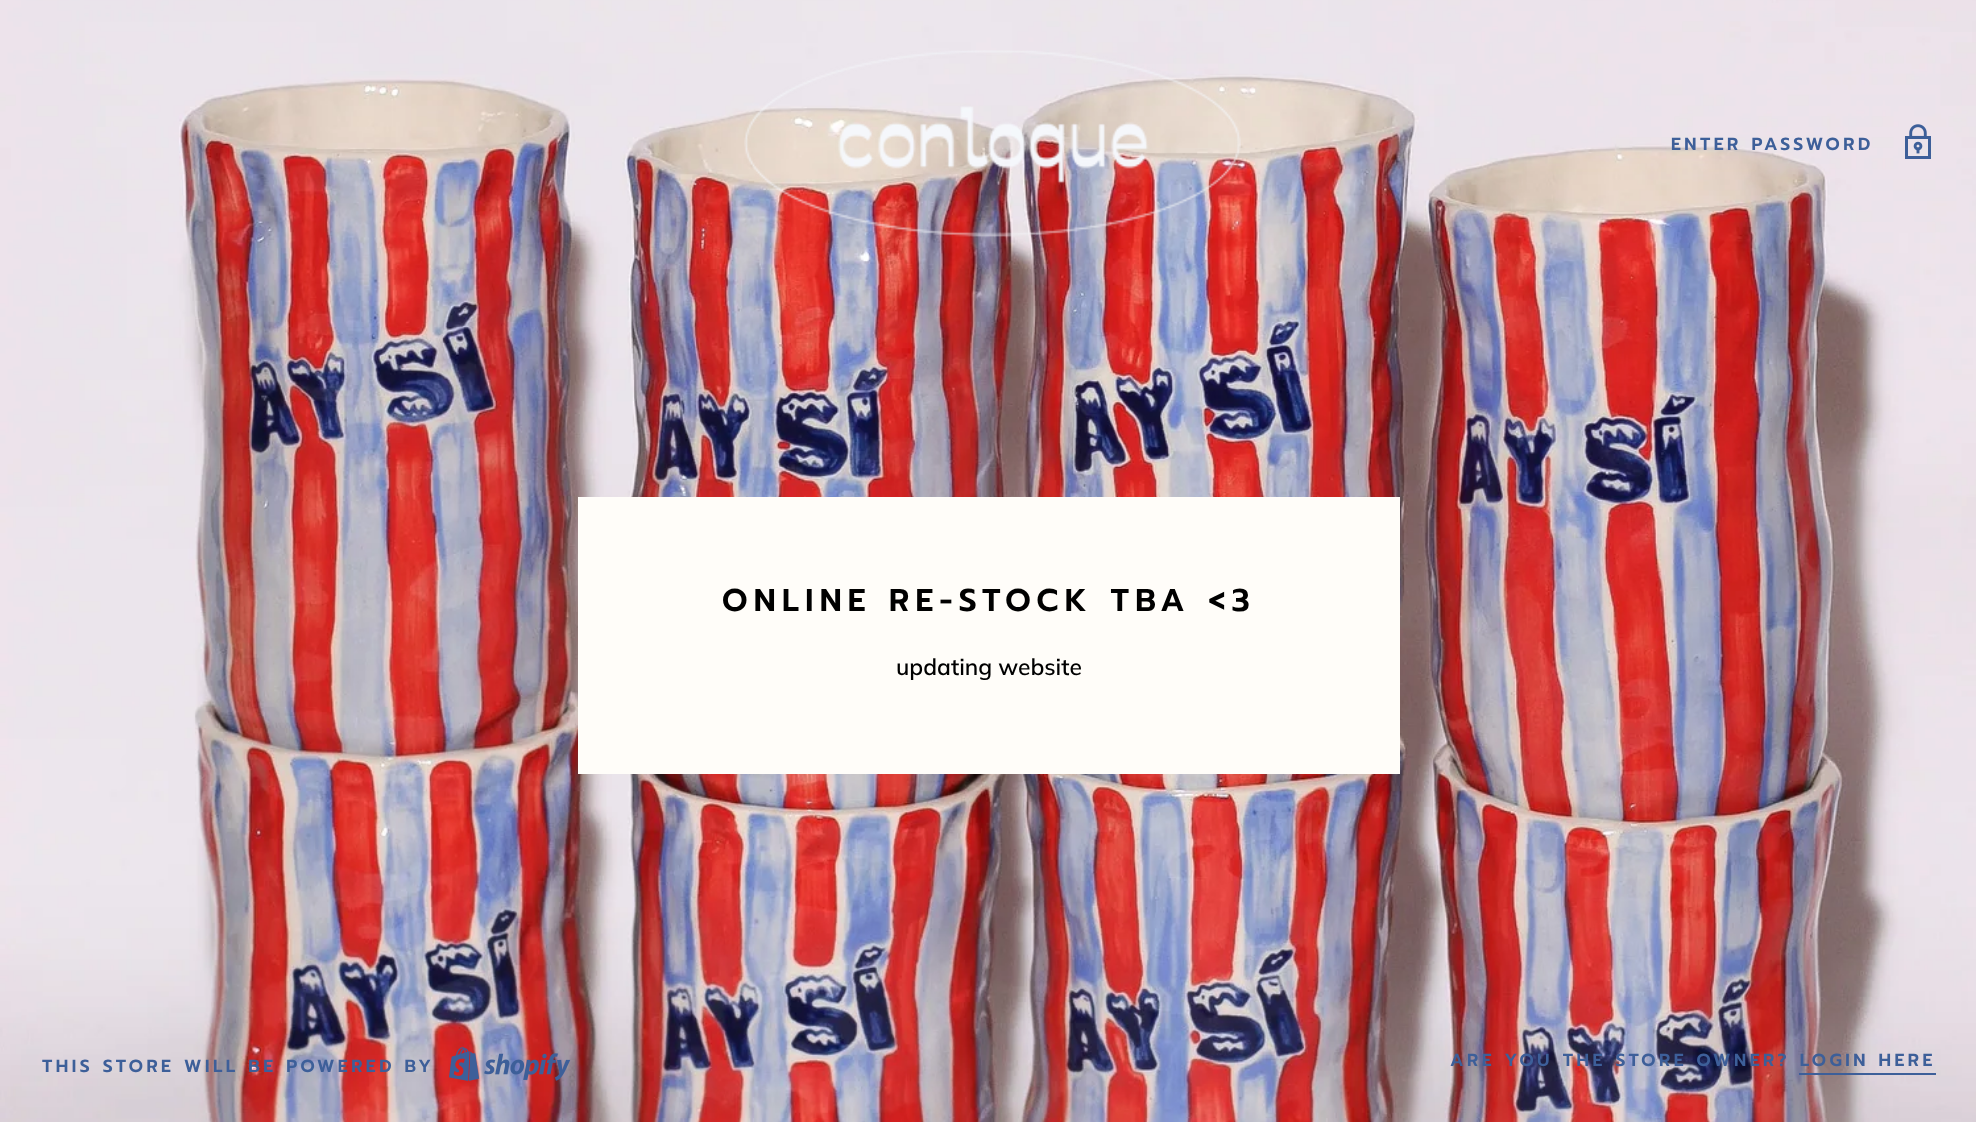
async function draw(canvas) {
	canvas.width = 1976;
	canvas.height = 1122;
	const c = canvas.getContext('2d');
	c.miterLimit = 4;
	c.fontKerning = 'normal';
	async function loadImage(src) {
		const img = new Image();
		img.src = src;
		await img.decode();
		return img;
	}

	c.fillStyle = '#fff';
	c.fillRect(0, 0, 1976, 1122);
	c.drawImage(await loadImage('img1.png'), 0, 0, 1976, 1122);
	c.drawImage(await loadImage('img2.png'), 744, 50, 497, 187);
	c.letterSpacing = '3.5px';
	c.font = '600 17.5px Prompt';
	c.fillStyle = '#3d5f99';
	c.fillText('ENTER PASSWORD', 1671, 150);
	c.drawImage(await loadImage('img3.png'), 1905, 124, 26, 35);
	c.fillStyle = '#fffdf9';
	c.fillRect(578, 497, 822, 277);
	c.letterSpacing = '6.3px';
	c.font = '600 31.5px Prompt';
	c.fillStyle = '#000';
	c.fillText('ONLINE RE-STOCK TBA <3', 722, 611);
	c.letterSpacing = '0px';
	c.font = '600 22.75px Muli';
	c.fillText('updating website', 896, 675);
	c.letterSpacing = '3.5px';
	c.font = '600 17.5px Prompt';
	c.fillStyle = '#3d5f99';
	c.fillText('THIS STORE WILL BE POWERED BY', 42, 1072);
	c.drawImage(await loadImage('img4.png'), 449, 1047, 122, 34);
	c.fillText('ARE YOU THE STORE OWNER? LOGIN HERE', 1450, 1066);
	c.fillRect(1799, 1073, 137, 2);
}

draw(document.querySelector('canvas'));
